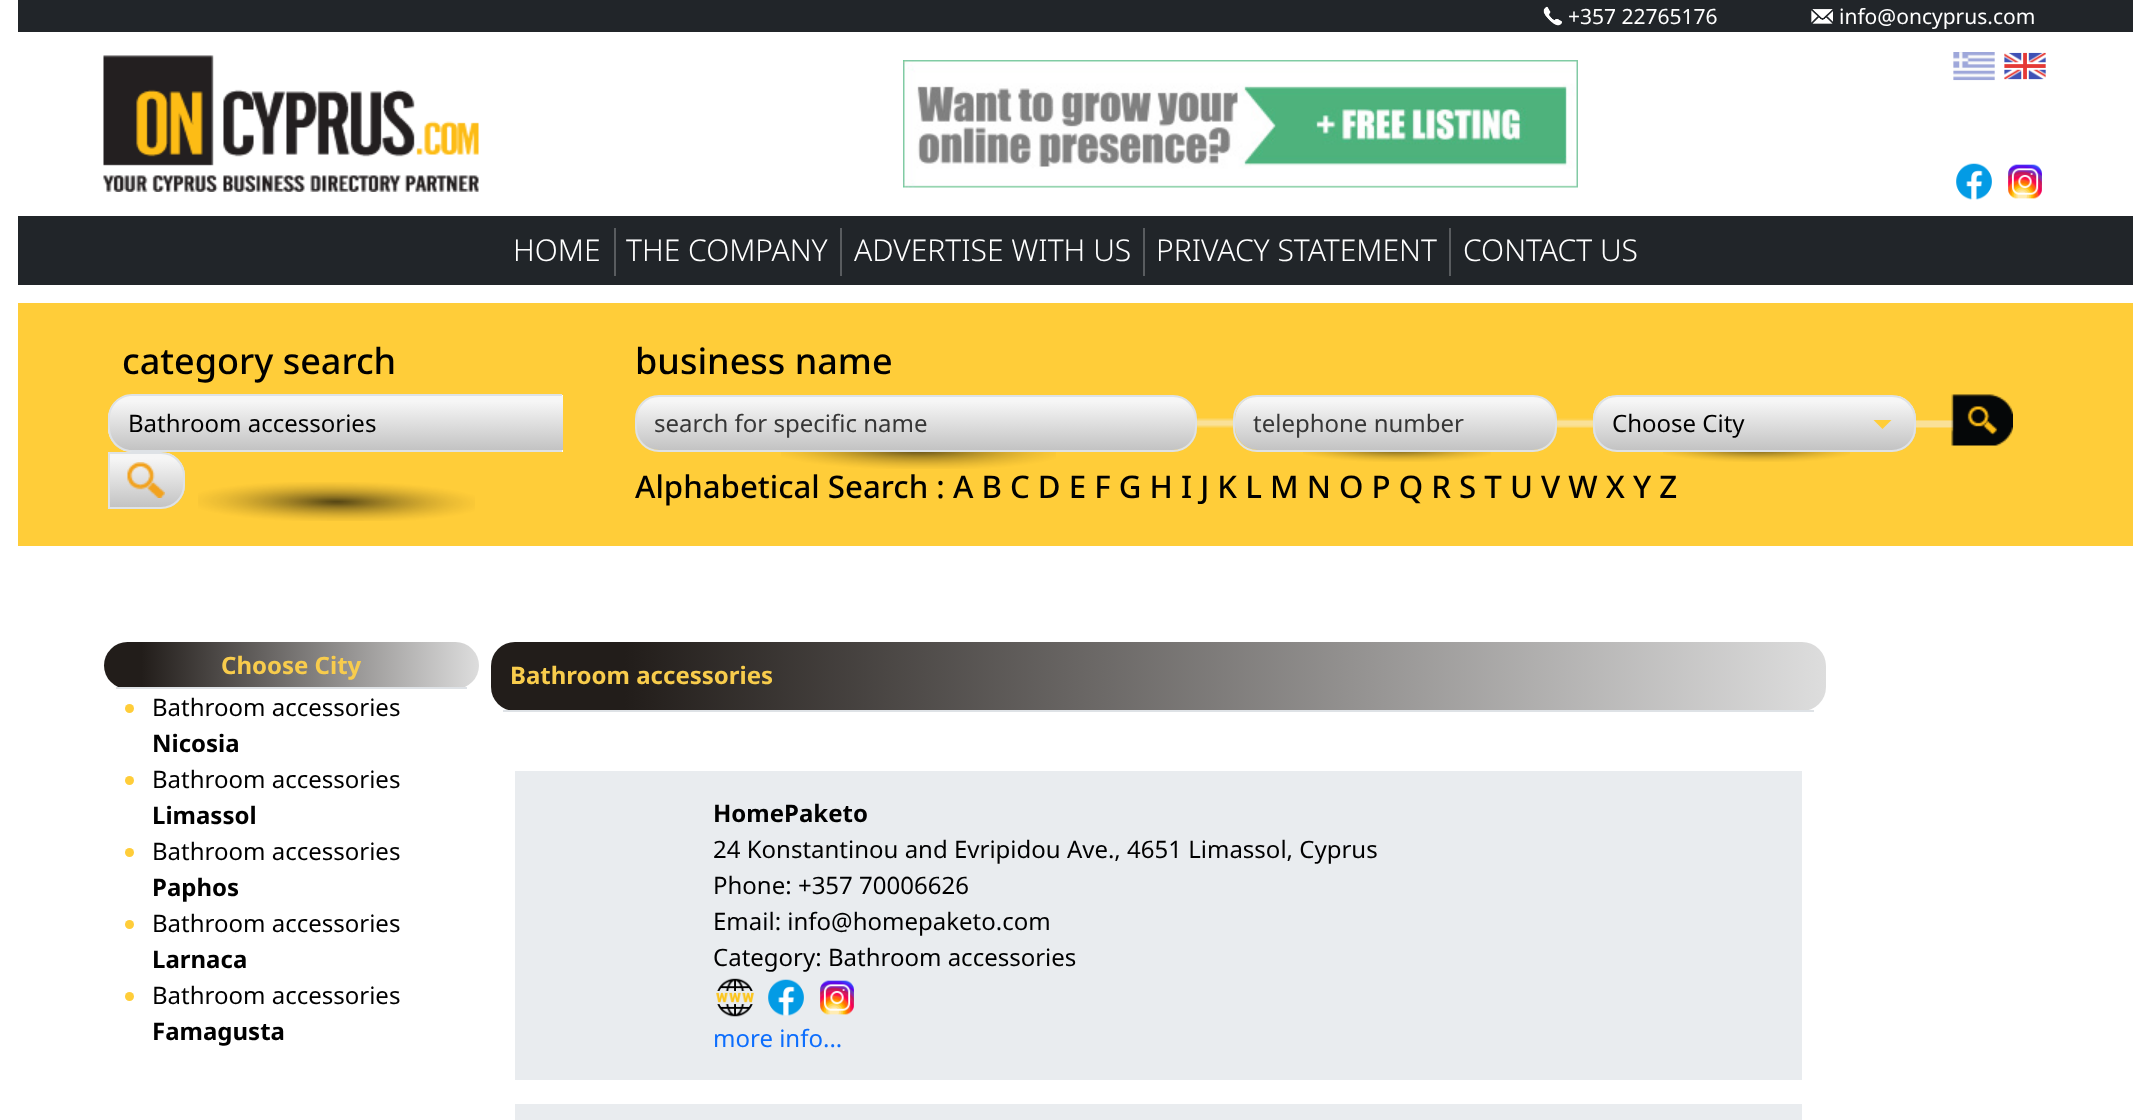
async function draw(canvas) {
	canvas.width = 2151;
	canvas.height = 1120;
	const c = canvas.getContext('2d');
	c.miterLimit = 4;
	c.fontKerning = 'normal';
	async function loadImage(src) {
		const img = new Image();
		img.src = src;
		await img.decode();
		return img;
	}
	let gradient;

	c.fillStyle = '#fff';
	c.fillRect(0, 0, 2151, 1120);
	c.fillStyle = '#212529';
	c.fillRect(18, 0, 2115, 32);
	c.drawImage(await loadImage('img1.png'), 1543, 6, 19, 20);
	c.font = '21px Noto Sans';
	c.fillStyle = '#fff';
	c.fillText('+357 22765176', 1568, 24);
	c.drawImage(await loadImage('img2.png'), 1811, 9, 22, 15);
	c.fillText('info@oncyprus.com', 1839, 24);
	c.drawImage(await loadImage('img3.png'), 103, 55, 376, 137);
	c.drawImage(await loadImage('img4.png'), 903, 60, 675, 128);
	c.drawImage(await loadImage('img5.png'), 1953, 52, 42, 29);
	c.drawImage(await loadImage('img6.png'), 2004, 52, 42, 28);
	c.drawImage(await loadImage('img7.png'), 1956, 163, 36, 37);
	c.drawImage(await loadImage('img8.png'), 2008, 164, 34, 35);
	c.fillStyle = '#212529';
	c.fillRect(18, 216, 2115, 69);
	c.font = '300 30px Noto Sans';
	c.fillStyle = '#fff';
	c.fillText('HOME', 513, 261);
	c.fillStyle = '#595c5f';
	c.fillRect(614, 228, 2, 48);
	c.fillStyle = '#fff';
	c.fillText('THE COMPANY', 626, 261);
	c.fillStyle = '#595c5f';
	c.fillRect(840, 228, 2, 48);
	c.fillStyle = '#fff';
	c.fillText('ADVERTISE WITH US', 854, 261);
	c.fillStyle = '#595c5f';
	c.fillRect(1143, 228, 2, 48);
	c.fillStyle = '#fff';
	c.fillText('PRIVACY STATEMENT', 1156, 261);
	c.fillStyle = '#595c5f';
	c.fillRect(1449, 228, 2, 48);
	c.fillStyle = '#fff';
	c.fillText('CONTACT US', 1463, 261);
	c.fillStyle = '#ffcd39';
	c.fillRect(18, 303, 2115, 243);
	c.font = '500 36px Noto Sans';
	c.fillStyle = '#000';
	c.fillText('category search', 122, 374);
	c.fillStyle = '#fff';
	c.beginPath();
	c.roundRect(108, 395, 455, 57, [24, 0, 0, 24]);
	c.fill();
	c.save();
	c.beginPath();
	c.roundRect(108, 395, 455, 57, [24, 0, 0, 24]);
	c.clip();
	gradient = c.createLinearGradient(336, 396, 336, 450);
	gradient.addColorStop(0.1, '#f6f6f6');
	gradient.addColorStop(1, '#c3c3c3');
	c.fillStyle = gradient;
	c.fillRect(110, 396, 453, 54);
	c.restore();
	c.fillStyle = '#dee2e6';
	c.beginPath();
	c.moveTo(132, 394);
	c.lineTo(562, 394);
	c.lineTo(562, 452);
	c.lineTo(132, 452);
	c.bezierCurveTo(119, 452, 108, 441, 108, 428);
	c.lineTo(108, 418);
	c.bezierCurveTo(108, 405, 119, 394, 132, 394);
	c.closePath();
	c.moveTo(132, 396);
	c.lineTo(562, 396);
	c.lineTo(562, 450);
	c.lineTo(132, 450);
	c.bezierCurveTo(120, 450, 110, 440, 110, 428);
	c.lineTo(110, 418);
	c.bezierCurveTo(110, 406, 120, 396, 132, 396);
	c.closePath();
	c.fill('evenodd');
	c.font = '24px Noto Sans';
	c.fillStyle = '#000';
	c.fillText('Bathroom accessories', 128, 432);
	c.save();
	c.beginPath();
	c.roundRect(108, 452, 77, 57, [0, 24, 24, 0]);
	c.clip();
	gradient = c.createLinearGradient(146, 453, 146, 507);
	gradient.addColorStop(0.1, '#f6f6f6');
	gradient.addColorStop(1, '#c3c3c3');
	c.fillStyle = gradient;
	c.fillRect(110, 453, 75, 54);
	c.restore();
	c.beginPath();
	c.roundRect(109, 453, 75, 55, [0, 23, 23, 0]);
	c.strokeStyle = '#dee2e6';
	c.lineWidth = 2;
	c.stroke();
	c.drawImage(await loadImage('img9.png'), 127, 462, 38, 36);
	c.drawImage(await loadImage('img10.png'), 198, 482, 277, 39);
	c.font = '500 36px Noto Sans';
	c.fillText('business name', 635, 374);
	c.drawImage(await loadImage('img11.png'), 1196, 418, 758, 10);
	gradient = c.createLinearGradient(916, 396, 916, 450);
	gradient.addColorStop(0.1, '#f6f6f6');
	gradient.addColorStop(1, '#c3c3c3');
	c.fillStyle = gradient;
	c.beginPath();
	c.roundRect(636, 396, 560, 54, 23);
	c.fill();
	c.beginPath();
	c.roundRect(636, 396, 560, 55, 23);
	c.stroke();
	c.font = '24px Noto Sans';
	c.fillStyle = '#373737';
	c.fillText('search for specific name', 654, 432);
	c.drawImage(await loadImage('img12.png'), 781, 452, 275, 17);
	gradient = c.createLinearGradient(1395, 396, 1395, 450);
	gradient.addColorStop(0.1, '#f6f6f6');
	gradient.addColorStop(1, '#c3c3c3');
	c.fillStyle = gradient;
	c.beginPath();
	c.roundRect(1235, 396, 321, 54, 23);
	c.fill();
	c.beginPath();
	c.roundRect(1234, 396, 322, 55, 23);
	c.stroke();
	c.fillStyle = '#373737';
	c.fillText('telephone number', 1253, 432);
	c.drawImage(await loadImage('img13.png'), 1303, 452, 188, 10);
	c.save();
	c.beginPath();
	c.roundRect(1593, 395, 323, 57, 24);
	c.clip();
	gradient = c.createLinearGradient(1754, 396, 1754, 450);
	gradient.addColorStop(0.1, '#f6f6f6');
	gradient.addColorStop(1, '#c3c3c3');
	c.fillStyle = gradient;
	c.fillRect(1593, 396, 323, 54);
	c.restore();
	c.beginPath();
	c.roundRect(1594, 396, 321, 55, 23);
	c.stroke();
	c.fillStyle = '#000';
	c.fillText('Choose City', 1612, 432);
	c.fillStyle = '#ffcd39';
	c.beginPath();
	c.moveTo(1873.5, 420);
	c.lineTo(1891.5, 420);
	c.lineTo(1882.5, 429);
	c.closePath();
	c.fill();
	c.drawImage(await loadImage('img14.png'), 1663, 452, 187, 10);
	c.drawImage(await loadImage('img15.png'), 1951, 394, 62, 52);
	c.font = '500 31.2px Noto Sans';
	c.fillStyle = '#000';
	c.fillText('Alphabetical Search : A B C D E F G H I J K L M N O P Q R S T U V W X Y Z', 635, 498);
	gradient = c.createLinearGradient(104, 665, 479, 665);
	gradient.addColorStop(0.1, '#221d1a');
	gradient.addColorStop(1, '#ddd');
	c.fillStyle = gradient;
	c.beginPath();
	c.roundRect(104, 642, 375, 47, 23.5);
	c.fill();
	c.fillStyle = '#dee2e6';
	c.fillRect(116, 687, 351, 2);
	c.font = 'bold 24px Noto Sans';
	c.fillStyle = '#f8cc4c';
	c.fillText('Choose City', 221, 674);
	c.fillStyle = '#ffcd39';
	c.beginPath();
	c.arc(129.5, 708.5, 4.5, 0, 2 * Math.PI);
	c.fill();
	c.font = '24px Noto Sans';
	c.fillStyle = '#000';
	c.fillText('Bathroom accessories', 152, 716);
	c.font = 'bold 24px Noto Sans';
	c.fillText('Nicosia', 152, 752);
	c.fillStyle = '#ffcd39';
	c.beginPath();
	c.arc(129.5, 780.5, 4.5, 0, 2 * Math.PI);
	c.fill();
	c.font = '24px Noto Sans';
	c.fillStyle = '#000';
	c.fillText('Bathroom accessories', 152, 788);
	c.font = 'bold 24px Noto Sans';
	c.fillText('Limassol', 152, 824);
	c.fillStyle = '#ffcd39';
	c.beginPath();
	c.arc(129.5, 852.5, 4.5, 0, 2 * Math.PI);
	c.fill();
	c.font = '24px Noto Sans';
	c.fillStyle = '#000';
	c.fillText('Bathroom accessories', 152, 860);
	c.font = 'bold 24px Noto Sans';
	c.fillText('Paphos', 152, 896);
	c.fillStyle = '#ffcd39';
	c.beginPath();
	c.arc(129.5, 924.5, 4.5, 0, 2 * Math.PI);
	c.fill();
	c.font = '24px Noto Sans';
	c.fillStyle = '#000';
	c.fillText('Bathroom accessories', 152, 932);
	c.font = 'bold 24px Noto Sans';
	c.fillText('Larnaca', 152, 968);
	c.fillStyle = '#ffcd39';
	c.beginPath();
	c.arc(129.5, 996.5, 4.5, 0, 2 * Math.PI);
	c.fill();
	c.font = '24px Noto Sans';
	c.fillStyle = '#000';
	c.fillText('Bathroom accessories', 152, 1004);
	c.font = 'bold 24px Noto Sans';
	c.fillText('Famagusta', 152, 1040);
	gradient = c.createLinearGradient(491, 676, 1826, 676);
	gradient.addColorStop(0.1, '#221d1a');
	gradient.addColorStop(1, '#ddd');
	c.fillStyle = gradient;
	c.beginPath();
	c.roundRect(491, 642, 1335, 69, 24);
	c.fill();
	c.fillStyle = '#dee2e6';
	c.fillRect(503, 710, 1311, 2);
	c.fillStyle = '#f8cc4c';
	c.fillText('Bathroom accessories', 510, 684);
	c.fillStyle = '#e9ecef';
	c.fillRect(515, 771, 1287, 309);
	c.fillStyle = '#000';
	c.fillText('HomePaketo', 713, 822);
	c.font = '24px Noto Sans';
	for (const [text, x, y] of [
		['24 Konstantinou and Evripidou Ave., 4651 Limassol, Cyprus', 713, 858],
		['Phone: +357 70006626', 713, 894],
		['Email: info@homepaketo.com', 713, 930],
		['Category: Bathroom accessories', 713, 966],
	]) {
		c.fillText(text, x, y);
	}
	c.drawImage(await loadImage('img16.png'), 716, 978, 38, 39);
	c.drawImage(await loadImage('img17.png'), 768, 979, 36, 37);
	c.drawImage(await loadImage('img18.png'), 820, 980, 34, 35);
	c.fillStyle = '#0d6efd';
	c.fillText('more info...', 713, 1047);
	c.fillStyle = '#e9ecef';
	c.fillRect(515, 1104, 1287, 16);
}

draw(document.querySelector('canvas'));
